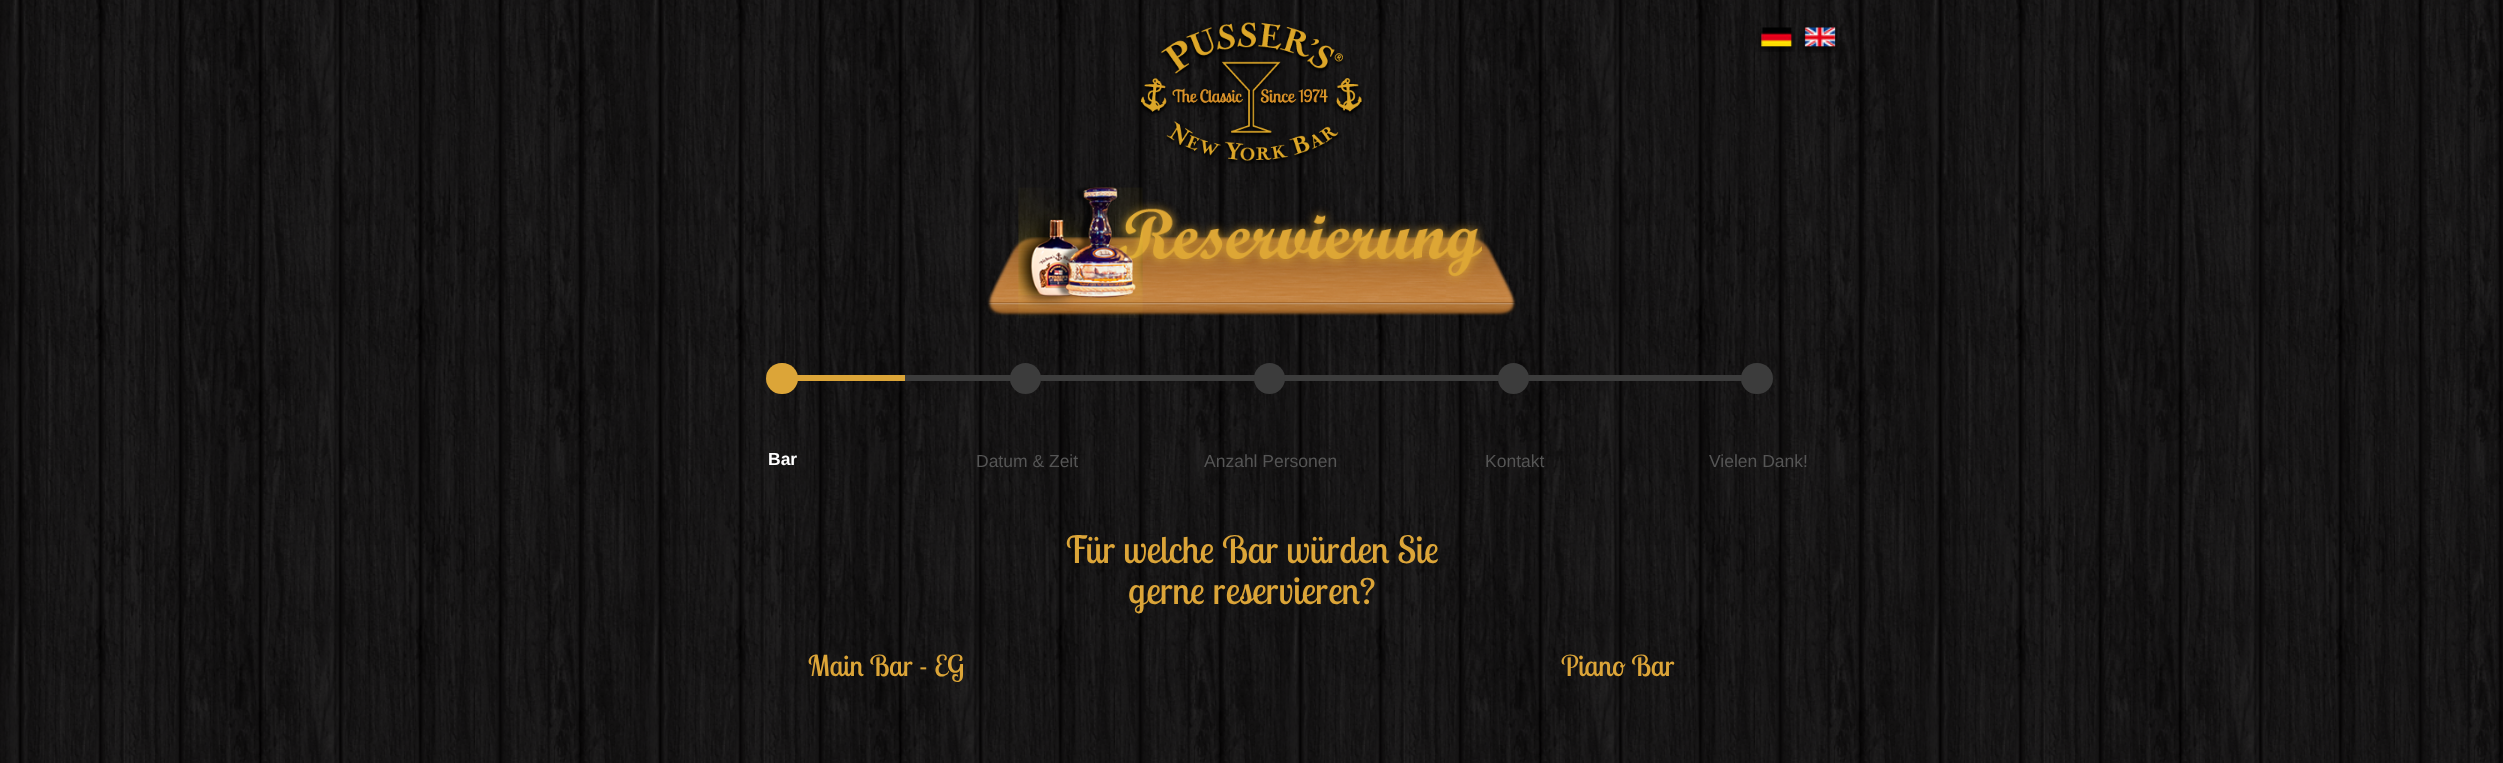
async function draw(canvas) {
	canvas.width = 2503;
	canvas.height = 763;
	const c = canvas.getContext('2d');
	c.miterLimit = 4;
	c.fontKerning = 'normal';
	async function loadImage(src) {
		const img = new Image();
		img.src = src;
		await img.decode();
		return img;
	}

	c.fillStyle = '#fff';
	c.fillRect(0, 0, 2503, 763);
	c.drawImage(await loadImage('img1.png'), 0, 0, 2503, 763);
	c.drawImage(await loadImage('img2.png'), 1141, 22, 222, 142);
	c.drawImage(await loadImage('img3.png'), 1758, 27, 37, 25);
	c.drawImage(await loadImage('img4.png'), 1800, 27, 39, 26);
	c.drawImage(await loadImage('img5.png'), 987, 187, 529, 131);
	c.fillStyle = '#dca538';
	c.fillRect(797, 375, 108, 6);
	c.beginPath();
	c.roundRect(766, 363, 32, 31, 15.5);
	c.fill();
	c.font = 'bold 17.5px Liberation Sans';
	c.fillStyle = '#fff';
	c.fillText('Bar', 768, 465);
	c.fillStyle = '#3c3c3c';
	c.fillRect(905, 375, 837, 6);
	c.beginPath();
	c.arc(1025.5, 378.5, 15.5, 0, 2 * Math.PI);
	c.fill();
	c.font = '17.5px Liberation Sans';
	c.fillStyle = '#555';
	c.fillText('Datum & Zeit', 976, 467);
	c.fillStyle = '#3c3c3c';
	c.beginPath();
	c.arc(1269.5, 378.5, 15.5, 0, 2 * Math.PI);
	c.fill();
	c.fillStyle = '#555';
	c.fillText('Anzahl Personen', 1204, 467);
	c.fillStyle = '#3c3c3c';
	c.beginPath();
	c.arc(1513.5, 378.5, 15.5, 0, 2 * Math.PI);
	c.fill();
	c.fillStyle = '#555';
	c.fillText('Kontakt', 1485, 467);
	c.fillStyle = '#3c3c3c';
	c.beginPath();
	c.roundRect(1741, 363, 32, 31, 15.5);
	c.fill();
	c.fillStyle = '#555';
	c.fillText('Vielen Dank!', 1709, 467);
	c.font = '37.5px Lobster Two';
	c.fillStyle = '#dca538';
	c.fillText('Für welche Bar würden Sie', 1066, 563);
	c.fillText('gerne reservieren?', 1128, 604);
	c.font = '28.75px Lobster Two';
	c.fillText('Main Bar - EG', 808, 676);
	c.fillText('Piano Bar', 1561, 676);
}

draw(document.querySelector('canvas'));
